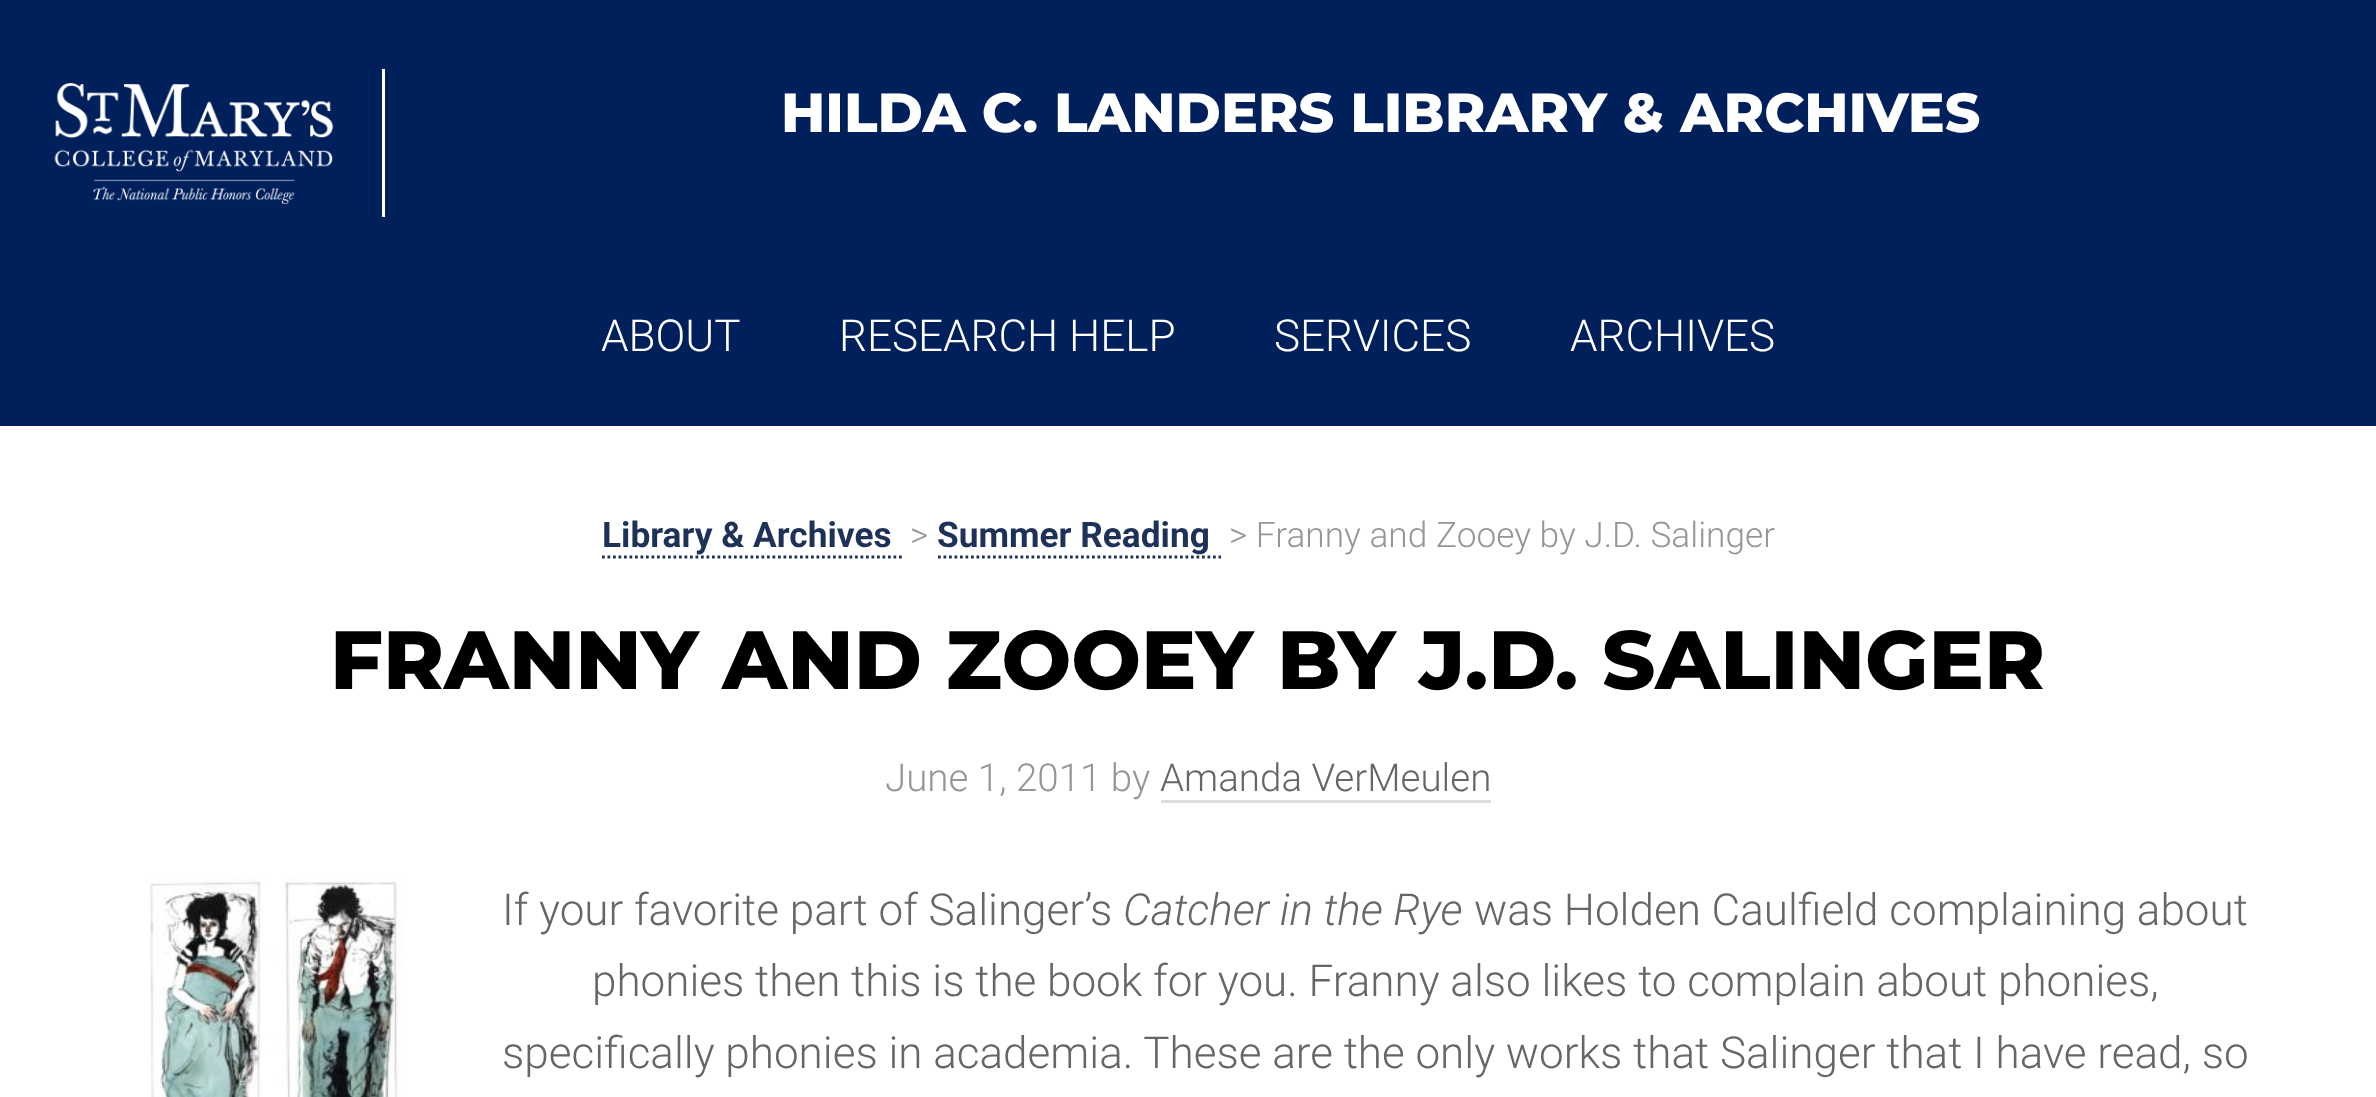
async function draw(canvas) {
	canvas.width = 2376;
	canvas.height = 1097;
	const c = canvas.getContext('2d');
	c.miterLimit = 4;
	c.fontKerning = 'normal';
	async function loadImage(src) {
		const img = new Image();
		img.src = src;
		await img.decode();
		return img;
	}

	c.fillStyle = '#fff';
	c.fillRect(0, 0, 2376, 1097);
	c.fillStyle = '#00205c';
	c.fillRect(0, 0, 2376, 426);
	c.fillStyle = '#fff';
	c.fillRect(382, 69, 3, 148);
	c.drawImage(await loadImage('img1.png'), 54, 83, 280, 121);
	c.font = '800 55px Montserrat';
	c.fillText('HILDA C. LANDERS LIBRARY & ARCHIVES', 781, 132);
	c.font = '300 44px Roboto';
	for (const [text, x, y] of [
		['ABOUT', 601, 351],
		['RESEARCH HELP', 839, 351],
		['SERVICES', 1274, 351],
		['ARCHIVES', 1570, 351],
	]) {
		c.fillText(text, x, y);
	}
	c.font = 'bold 35.25px Roboto';
	c.fillStyle = '#1e3159';
	c.fillText('Library & Archives', 602, 547);
	c.beginPath();
	c.moveTo(602, 557);
	c.lineTo(902, 557);
	c.strokeStyle = '#1e3159';
	c.lineWidth = 2.8;
	c.setLineDash([2.75, 2.75]);
	c.stroke();
	c.font = '300 35.25px Roboto';
	c.fillStyle = '#969696';
	c.fillText('>', 910, 547);
	c.font = 'bold 35.25px Roboto';
	c.fillStyle = '#1e3159';
	c.fillText('Summer Reading', 937, 547);
	c.beginPath();
	c.moveTo(938, 557);
	c.lineTo(1221, 557);
	c.stroke();
	c.font = '300 35.25px Roboto';
	c.fillStyle = '#969696';
	c.fillText('> Franny and Zooey by J.D. Salinger', 1229, 547);
	c.font = '800 82.5px Montserrat';
	c.fillStyle = '#000';
	c.fillText('FRANNY AND ZOOEY BY J.D. SALINGER', 330, 689);
	c.font = '300 38.5px Roboto';
	c.fillStyle = '#969696';
	c.fillText('June 1, 2011 by', 885, 791);
	c.fillStyle = '#666';
	c.fillText('Amanda VerMeulen', 1160, 791);
	c.fillStyle = '#ddd';
	c.fillRect(1161, 800, 330, 3);
	c.drawImage(await loadImage('img2.png'), 149, 876, 254, 221);
	c.font = '300 44px Roboto';
	c.fillStyle = '#666';
	c.fillText('If your favorite part of Salinger’s', 502, 925);
	c.font = 'italic 300 44px Roboto';
	c.fillText('Catcher in the Rye', 1123, 925);
	c.font = '300 44px Roboto';
	for (const [text, x, y] of [
		['was Holden Caulfield complaining about', 1474, 925],
		['phonies then this is the book for you. Franny also likes to complain about phonies,', 592, 996],
		['specifically phonies in academia. These are the only works that Salinger that I have read, so', 502, 1068],
	]) {
		c.fillText(text, x, y);
	}
}

draw(document.querySelector('canvas'));
